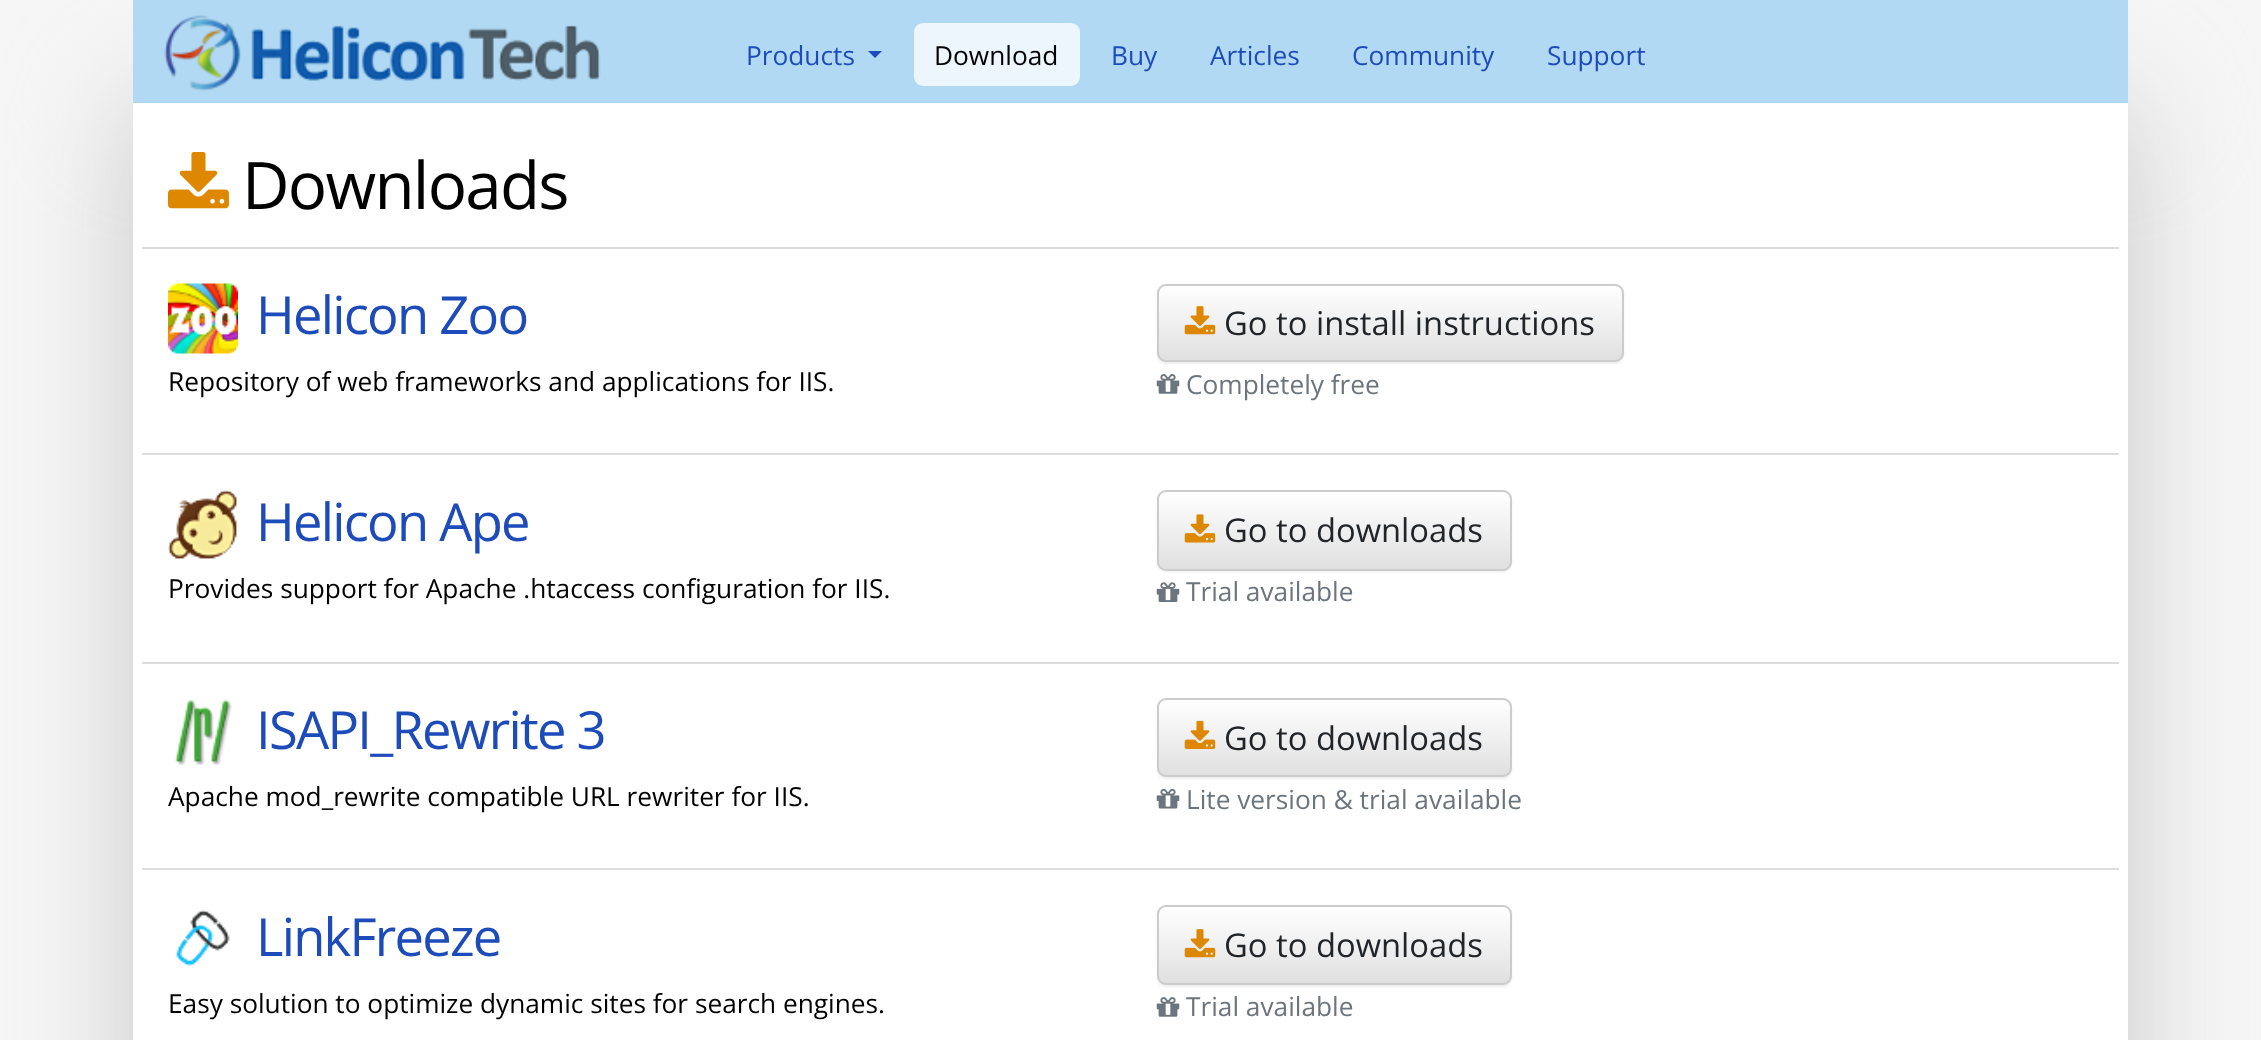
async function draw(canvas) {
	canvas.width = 2261;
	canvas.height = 1040;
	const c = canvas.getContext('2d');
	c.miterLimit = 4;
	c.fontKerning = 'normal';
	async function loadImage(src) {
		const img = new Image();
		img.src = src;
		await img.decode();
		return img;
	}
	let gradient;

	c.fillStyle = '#f6f6f6';
	c.fillRect(0, 0, 2261, 1040);
	c.fillStyle = '#c8c8c8';
	c.filter = 'blur(61px)';
	c.beginPath();
	c.rect(133, 103, 1995, 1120);
	c.fill();
	c.filter = 'none';
	c.fillStyle = '#b1d9f3';
	c.fillRect(133, 0, 1995, 103);
	c.drawImage(await loadImage('img1.png'), 164, 15, 437, 76);
	c.font = '26.25px Open Sans';
	c.fillStyle = '#1e4bba';
	c.fillText('Products', 746, 65);
	c.beginPath();
	c.moveTo(868, 51);
	c.lineTo(882, 51);
	c.lineTo(875, 58);
	c.closePath();
	c.fill();
	c.fillStyle = '#ecf6fc';
	c.beginPath();
	c.roundRect(914, 23, 166, 63, 9);
	c.fill();
	c.fillStyle = '#000';
	c.fillText('Download', 934, 65);
	c.fillStyle = '#1e4bba';
	for (const [text, x, y] of [
		['Buy', 1111, 65],
		['Articles', 1210, 65],
		['Community', 1352, 65],
		['Support', 1547, 65],
	]) {
		c.fillText(text, x, y);
	}
	c.fillStyle = '#fff';
	c.fillRect(133, 103, 1995, 937);
	c.drawImage(await loadImage('img2.png'), 168, 152, 61, 57);
	c.letterSpacing = '-1.75px';
	c.font = '65.5px Open Sans';
	c.fillStyle = '#000';
	c.fillText('Downloads', 242, 209);
	c.fillStyle = '#ddd';
	c.fillRect(142, 247, 1977, 2);
	c.drawImage(await loadImage('img3.png'), 168, 283, 70, 71);
	c.font = '52.5px Open Sans';
	c.fillStyle = '#1e4bba';
	c.fillText('Helicon Zoo', 256, 334);
	c.letterSpacing = '0px';
	c.font = '26.25px Open Sans';
	c.fillStyle = '#000';
	c.fillText('Repository of web frameworks and applications for IIS.', 168, 391);
	c.fillStyle = '#00000012';
	c.filter = 'blur(1px)';
	c.beginPath();
	c.roundRect(1157, 285, 467, 79, 9);
	c.fill();
	c.filter = 'none';
	c.save();
	c.beginPath();
	c.roundRect(1157, 284, 467, 78, 9);
	c.clip();
	gradient = c.createLinearGradient(1390, 285, 1390, 361);
	gradient.addColorStop(0, '#fff');
	gradient.addColorStop(1, '#e0e0e0');
	c.fillStyle = gradient;
	c.fillRect(1157, 285, 467, 76);
	c.restore();
	c.beginPath();
	c.roundRect(1158, 285, 465, 76, 8);
	c.strokeStyle = '#ccc';
	c.lineWidth = 2;
	c.stroke();
	c.drawImage(await loadImage('img4.png'), 1184, 306, 32, 29);
	c.font = '32.75px Open Sans';
	c.fillStyle = '#212529';
	c.fillText('Go to install instructions', 1224, 335);
	c.drawImage(await loadImage('img5.png'), 1156, 374, 24, 20);
	c.font = '26.25px Open Sans';
	c.fillStyle = '#6c757d';
	c.fillText('Completely free', 1186, 394);
	c.fillStyle = '#ddd';
	c.fillRect(142, 453, 1977, 2);
	c.drawImage(await loadImage('img6.png'), 168, 490, 69, 69);
	c.letterSpacing = '-1.75px';
	c.font = '52.5px Open Sans';
	c.fillStyle = '#1e4bba';
	c.fillText('Helicon Ape', 256, 541);
	c.letterSpacing = '0px';
	c.font = '26.25px Open Sans';
	c.fillStyle = '#000';
	c.fillText('Provides support for Apache .htaccess configuration for IIS.', 168, 598);
	c.fillStyle = '#00000012';
	c.filter = 'blur(1px)';
	c.beginPath();
	c.roundRect(1157, 492, 355, 80, 9);
	c.fill();
	c.filter = 'none';
	c.save();
	c.beginPath();
	c.roundRect(1157, 490, 355, 81, 9);
	c.clip();
	gradient = c.createLinearGradient(1334, 492, 1334, 569);
	gradient.addColorStop(0, '#fff');
	gradient.addColorStop(1, '#e0e0e0');
	c.fillStyle = gradient;
	c.fillRect(1157, 492, 355, 77);
	c.restore();
	c.beginPath();
	c.roundRect(1158, 491, 353, 79, 8);
	c.stroke();
	c.drawImage(await loadImage('img7.png'), 1184, 514, 32, 29);
	c.font = '32.75px Open Sans';
	c.fillStyle = '#212529';
	c.fillText('Go to downloads', 1224, 542);
	c.drawImage(await loadImage('img8.png'), 1156, 582, 24, 20);
	c.font = '26.25px Open Sans';
	c.fillStyle = '#6c757d';
	c.fillText('Trial available', 1186, 601);
	c.fillStyle = '#ddd';
	c.fillRect(142, 662, 1977, 2);
	c.drawImage(await loadImage('img9.png'), 174, 699, 58, 66);
	c.letterSpacing = '-1.75px';
	c.font = '52.5px Open Sans';
	c.fillStyle = '#1e4bba';
	c.fillText('ISAPI_Rewrite 3', 256, 749);
	c.letterSpacing = '0px';
	c.font = '26.25px Open Sans';
	c.fillStyle = '#000';
	c.fillText('Apache mod_rewrite compatible URL rewriter for IIS.', 168, 806);
	c.fillStyle = '#00000012';
	c.filter = 'blur(1px)';
	c.beginPath();
	c.roundRect(1157, 700, 355, 79, 9);
	c.fill();
	c.filter = 'none';
	c.save();
	c.beginPath();
	c.roundRect(1157, 698, 355, 79, 9);
	c.clip();
	gradient = c.createLinearGradient(1334, 700, 1334, 775);
	gradient.addColorStop(0, '#fff');
	gradient.addColorStop(1, '#e0e0e0');
	c.fillStyle = gradient;
	c.fillRect(1157, 700, 355, 75);
	c.restore();
	c.beginPath();
	c.roundRect(1158, 699, 353, 77, 8);
	c.stroke();
	c.drawImage(await loadImage('img10.png'), 1184, 720, 32, 29);
	c.font = '32.75px Open Sans';
	c.fillStyle = '#212529';
	c.fillText('Go to downloads', 1224, 750);
	c.drawImage(await loadImage('img11.png'), 1156, 788, 24, 21);
	c.font = '26.25px Open Sans';
	c.fillStyle = '#6c757d';
	c.fillText('Lite version & trial available', 1186, 809);
	c.fillStyle = '#ddd';
	c.fillRect(142, 868, 1977, 2);
	c.drawImage(await loadImage('img12.png'), 176, 909, 54, 58);
	c.letterSpacing = '-1.75px';
	c.font = '52.5px Open Sans';
	c.fillStyle = '#1e4bba';
	c.fillText('LinkFreeze', 256, 956);
	c.letterSpacing = '0px';
	c.font = '26.25px Open Sans';
	c.fillStyle = '#000';
	c.fillText('Easy solution to optimize dynamic sites for search engines.', 168, 1013);
	c.fillStyle = '#00000012';
	c.filter = 'blur(1px)';
	c.beginPath();
	c.roundRect(1157, 907, 355, 80, 9);
	c.fill();
	c.filter = 'none';
	c.save();
	c.beginPath();
	c.roundRect(1157, 905, 355, 80, 9);
	c.clip();
	gradient = c.createLinearGradient(1334, 907, 1334, 984);
	gradient.addColorStop(0, '#fff');
	gradient.addColorStop(1, '#e0e0e0');
	c.fillStyle = gradient;
	c.fillRect(1157, 907, 355, 77);
	c.restore();
	c.beginPath();
	c.roundRect(1158, 906, 353, 78, 8);
	c.stroke();
	c.drawImage(await loadImage('img13.png'), 1184, 929, 32, 29);
	c.font = '32.75px Open Sans';
	c.fillStyle = '#212529';
	c.fillText('Go to downloads', 1224, 957);
	c.drawImage(await loadImage('img5.png'), 1156, 997, 24, 20);
	c.font = '26.25px Open Sans';
	c.fillStyle = '#6c757d';
	c.fillText('Trial available', 1186, 1016);
}

draw(document.querySelector('canvas'));
